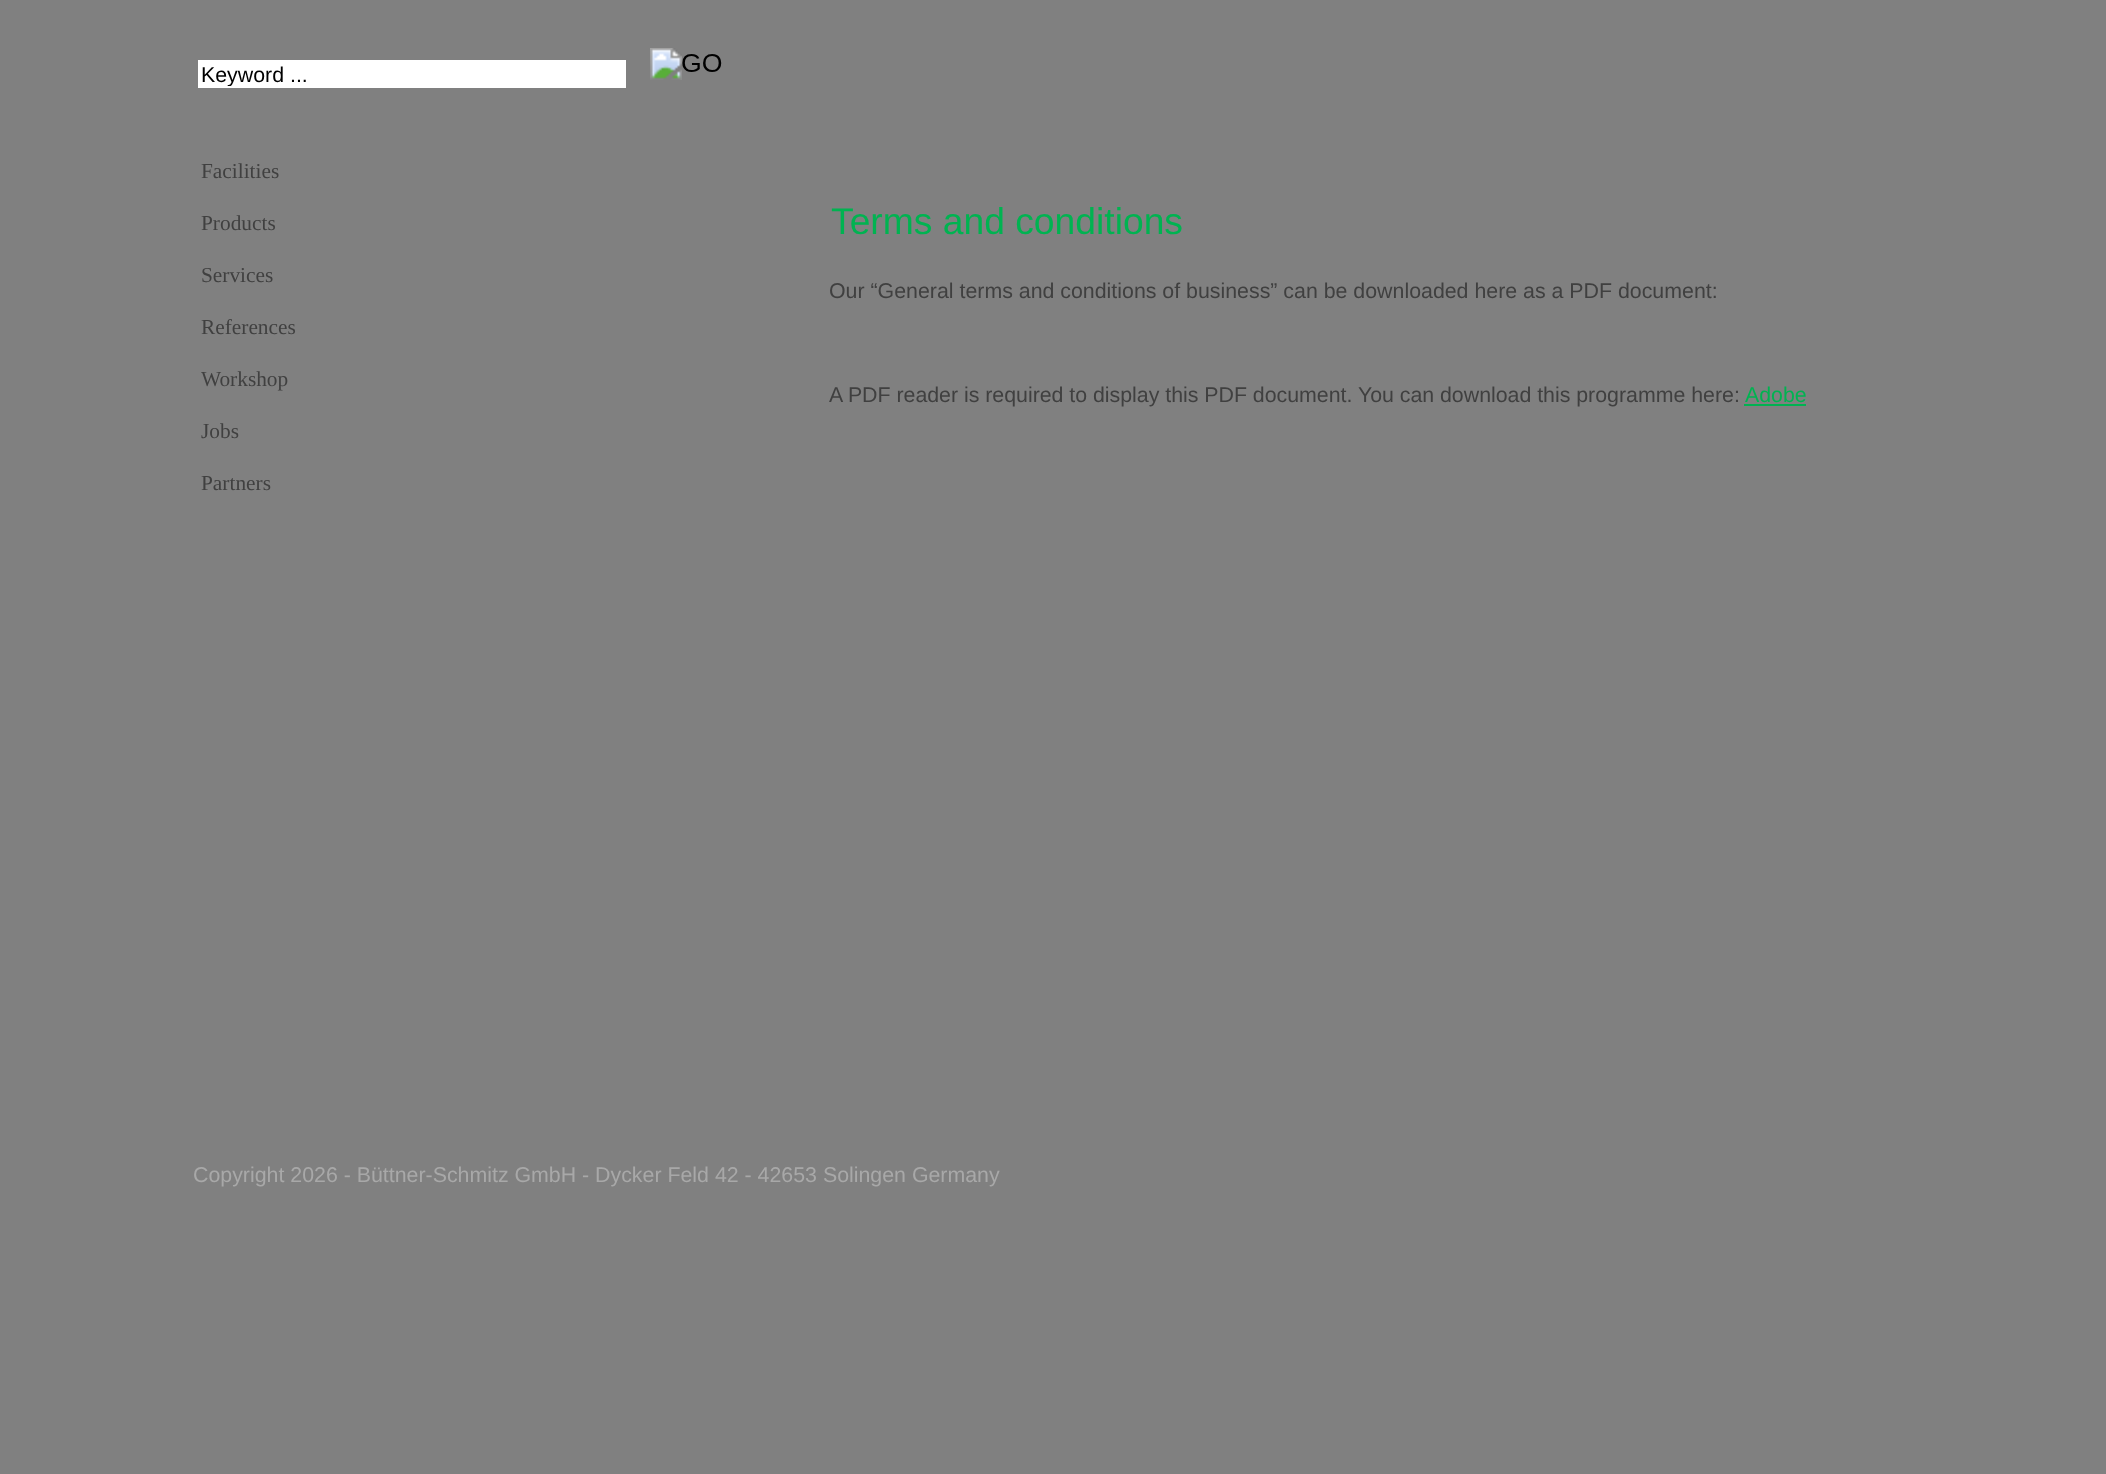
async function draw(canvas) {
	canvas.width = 2106;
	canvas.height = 1474;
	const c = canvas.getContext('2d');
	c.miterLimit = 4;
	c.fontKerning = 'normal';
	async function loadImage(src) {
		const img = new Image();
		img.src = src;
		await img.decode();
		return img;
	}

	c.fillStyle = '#808080';
	c.fillRect(0, 0, 2106, 1474);
	c.fillStyle = '#fff';
	c.fillRect(198, 60, 428, 28);
	c.save();
	c.beginPath();
	c.rect(202, 62, 420, 24);
	c.clip();
	c.font = '21.35px Liberation Sans';
	c.fillStyle = '#000';
	c.fillText('Keyword ...', 201, 82);
	c.restore();
	c.drawImage(await loadImage('img1.png'), 650, 48, 72, 32);
	c.font = '21.35px Liberation Serif';
	c.fillStyle = '#404040';
	for (const [text, x, y] of [
		['Facilities', 201, 178],
		['Products', 201, 230],
		['Services', 201, 282],
		['References', 201, 334],
		['Workshop', 201, 386],
		['Jobs', 201, 438],
		['Partners', 201, 490],
	]) {
		c.fillText(text, x, y);
	}
	c.font = '37.25px Liberation Sans';
	c.fillStyle = '#00b351';
	c.fillText('Terms and conditions', 831, 234);
	c.font = '21.35px Liberation Sans';
	c.fillStyle = '#404040';
	c.fillText('Our “General terms and conditions of business” can be downloaded here as a PDF document:', 829, 298);
	c.wordSpacing = '-0.1px';
	c.fillText('A PDF reader is required to display this PDF document. You can download this programme here:', 829, 402);
	c.wordSpacing = '0px';
	c.fillStyle = '#00b351';
	c.fillText('Adobe', 1745, 402);
	c.fillRect(1744, 404, 62, 2);
	c.fillStyle = '#a8a8a8';
	c.fillText('Copyright 2026 - Büttner-Schmitz GmbH - Dycker Feld 42 - 42653 Solingen Germany', 193, 1182);
}

draw(document.querySelector('canvas'));
